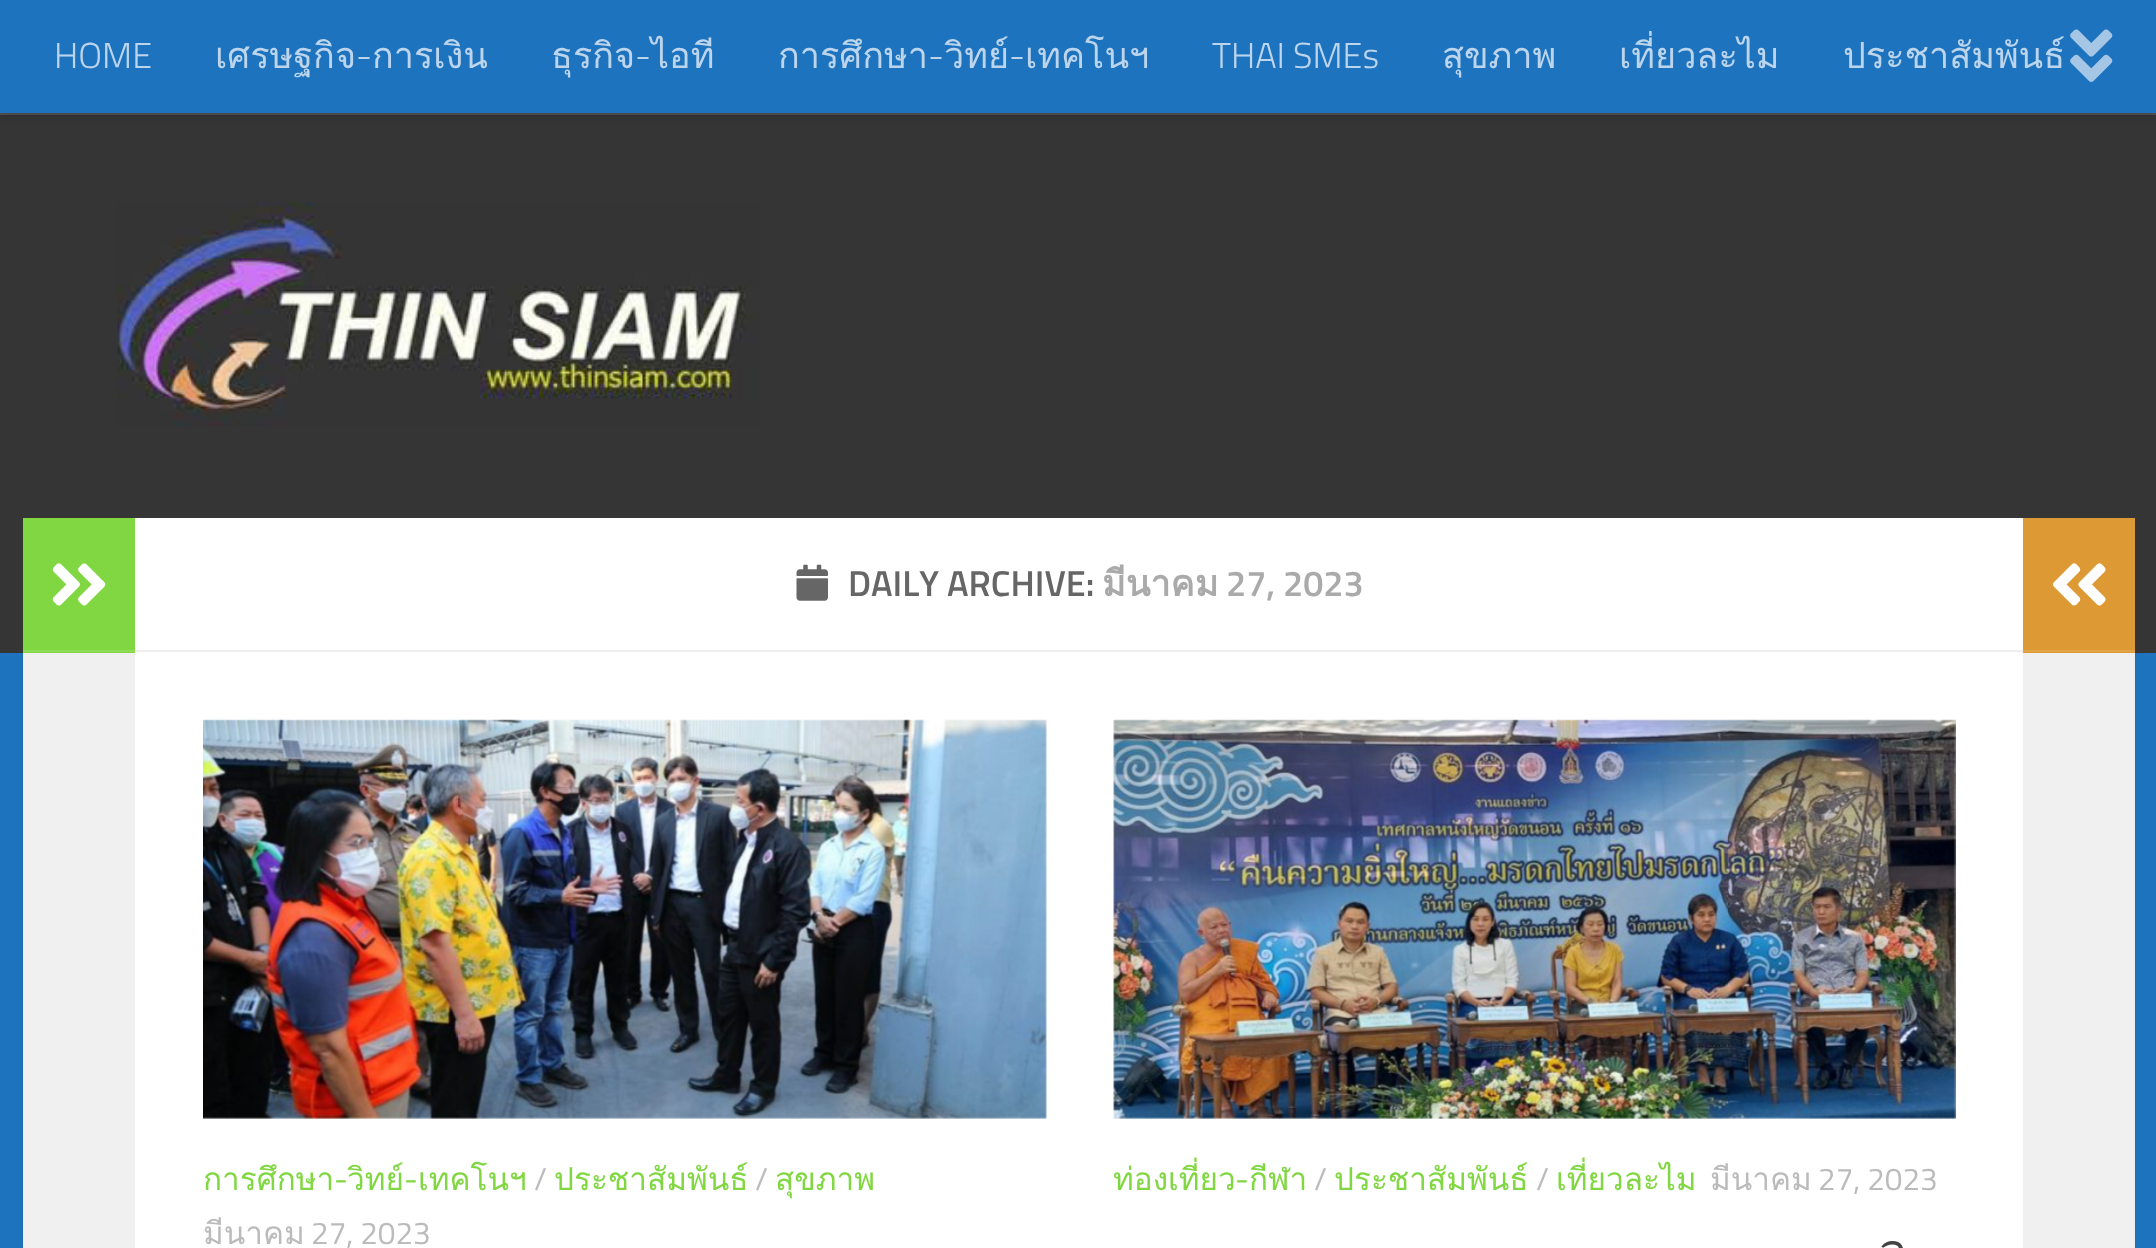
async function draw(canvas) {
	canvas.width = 2156;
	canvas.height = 1248;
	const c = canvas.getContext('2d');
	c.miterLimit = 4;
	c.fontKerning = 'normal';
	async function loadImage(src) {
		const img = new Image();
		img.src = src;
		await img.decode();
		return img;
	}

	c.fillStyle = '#1e73be';
	c.fillRect(0, 0, 2156, 1248);
	c.fillStyle = '#0000001a';
	c.filter = 'blur(1px)';
	c.beginPath();
	c.rect(23, 520, 2112, 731);
	c.fill();
	c.filter = 'none';
	c.fillStyle = '#353535';
	c.fillRect(0, 115, 2156, 538);
	c.fillStyle = '#535353';
	c.beginPath();
	c.moveTo(0, 112);
	c.lineTo(0, 115);
	c.lineTo(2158, 115);
	c.lineTo(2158, 2);
	c.lineTo(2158, 112);
	c.closePath();
	c.fill();
	c.fillStyle = '#00000033';
	c.filter = 'blur(5.5px)';
	c.beginPath();
	c.rect(0, 0, 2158, 113);
	c.fill();
	c.filter = 'none';
	c.fillStyle = '#1e73be';
	c.fillRect(0, 0, 2156, 113);
	c.font = '300 36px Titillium';
	c.fillStyle = '#bcd5ec';
	c.fillText('HOME', 54, 68);
	c.font = '36px Loma';
	c.fillText('เศรษฐกิจ', 215, 68);
	c.font = '300 36px Titillium';
	c.fillText('-', 356, 68);
	c.font = '36px Loma';
	c.fillText('การเงิน', 372, 68);
	c.fillText('ธุรกิจ', 551, 68);
	c.font = '300 36px Titillium';
	c.fillText('-', 635, 68);
	c.font = '36px Loma';
	c.fillText('ไอที', 651, 68);
	c.fillText('การศึกษา', 778, 68);
	c.font = '300 36px Titillium';
	c.fillText('-', 928, 68);
	c.font = '36px Loma';
	c.fillText('วิทย์', 944, 68);
	c.fillText('เทคโนฯ', 1025, 68);
	c.font = '300 36px Titillium';
	c.fillText('-', 1009, 68);
	c.fillText('THAI SMEs', 1212, 68);
	c.font = '36px Loma';
	for (const [text, x, y] of [
		['สุขภาพ', 1442, 68],
		['เที่ยวละไม', 1619, 68],
		['ประชาสัมพันธ์', 1843, 68],
	]) {
		c.fillText(text, x, y);
	}
	c.drawImage(await loadImage('img1.png'), 2070, 29, 43, 53);
	c.drawImage(await loadImage('img2.png'), 117, 202, 642, 224);
	for (const [x, y, w, h, color] of [
		[135, 518, 1888, 730, '#fff'],
		[23, 653, 112, 595, '#f0f0f0'],
		[23, 518, 112, 135, '#81d742'],
		[23, 650, 112, 2, '#8edb55'],
	]) {
		c.fillStyle = color;
		c.fillRect(x, y, w, h);
	}
	c.drawImage(await loadImage('img3.png'), 52, 563, 54, 43);
	c.fillStyle = '#eee';
	c.fillRect(135, 650, 1888, 2);
	c.drawImage(await loadImage('img4.png'), 796, 564, 32, 37);
	c.font = '600 36px Titillium';
	c.fillStyle = '#666';
	c.fillText('DAILY ARCHIVE:', 848, 596);
	c.font = 'bold 36px Loma';
	c.fillStyle = '#aaa';
	c.fillText('มีนาคม', 1102, 596);
	c.font = '600 36px Titillium';
	c.fillText('27, 2023', 1226, 596);
	c.drawImage(await loadImage('img5.png'), 203, 719, 844, 400);
	c.font = '31.5px Loma';
	c.fillStyle = '#81d742';
	c.fillText('การศึกษา', 203, 1190);
	c.font = '31.5px Titillium';
	c.fillText('-', 334, 1190);
	c.font = '31.5px Loma';
	c.fillText('วิทย์', 347, 1190);
	c.fillText('เทคโนฯ', 418, 1190);
	c.font = '31.5px Titillium';
	c.fillStyle = '#bbb';
	c.fillText('/', 534, 1190);
	c.font = '31.5px Loma';
	c.fillStyle = '#81d742';
	c.fillText('ประชาสัมพันธ์', 554, 1190);
	c.font = '31.5px Titillium';
	c.fillStyle = '#bbb';
	c.fillText('/', 755, 1190);
	c.font = '31.5px Loma';
	c.fillStyle = '#81d742';
	c.fillText('สุขภาพ', 775, 1190);
	c.font = '31.5px Titillium';
	c.fillText('-', 404, 1190);
	c.font = '31.5px Loma';
	c.fillStyle = '#bbb';
	c.fillText('มีนาคม', 203, 1244);
	c.font = '31.5px Titillium';
	c.fillText('27, 2023', 311, 1244);
	c.drawImage(await loadImage('img6.png'), 1113, 719, 843, 400);
	c.font = '31.5px Loma';
	c.fillStyle = '#81d742';
	c.fillText('ท่องเที่ยว', 1113, 1190);
	c.font = '31.5px Titillium';
	c.fillText('-', 1235, 1190);
	c.font = '31.5px Loma';
	c.fillText('กีฬา', 1249, 1190);
	c.font = '31.5px Titillium';
	c.fillStyle = '#bbb';
	c.fillText('/', 1314, 1190);
	c.font = '31.5px Loma';
	c.fillStyle = '#81d742';
	c.fillText('ประชาสัมพันธ์', 1334, 1190);
	c.font = '31.5px Titillium';
	c.fillStyle = '#bbb';
	c.fillText('/', 1536, 1190);
	c.font = '31.5px Loma';
	c.fillStyle = '#81d742';
	c.fillText('เที่ยวละไม', 1556, 1190);
	c.fillStyle = '#bbb';
	c.fillText('มีนาคม', 1710, 1190);
	c.font = '31.5px Titillium';
	c.fillText('27, 2023', 1818, 1190);
	c.wordSpacing = '-6px';
	c.font = '50px Loma';
	c.fillStyle = '#444';
	c.fillText('ว', 1879, 1269);
	c.fillStyle = '#d93';
	c.fillRect(2023, 518, 112, 135);
	c.fillStyle = '#e0a347';
	c.fillRect(2023, 650, 112, 2);
	c.drawImage(await loadImage('img7.png'), 2053, 563, 53, 43);
	c.fillStyle = '#f0f0f0';
	c.fillRect(2023, 653, 112, 595);
}

draw(document.querySelector('canvas'));
